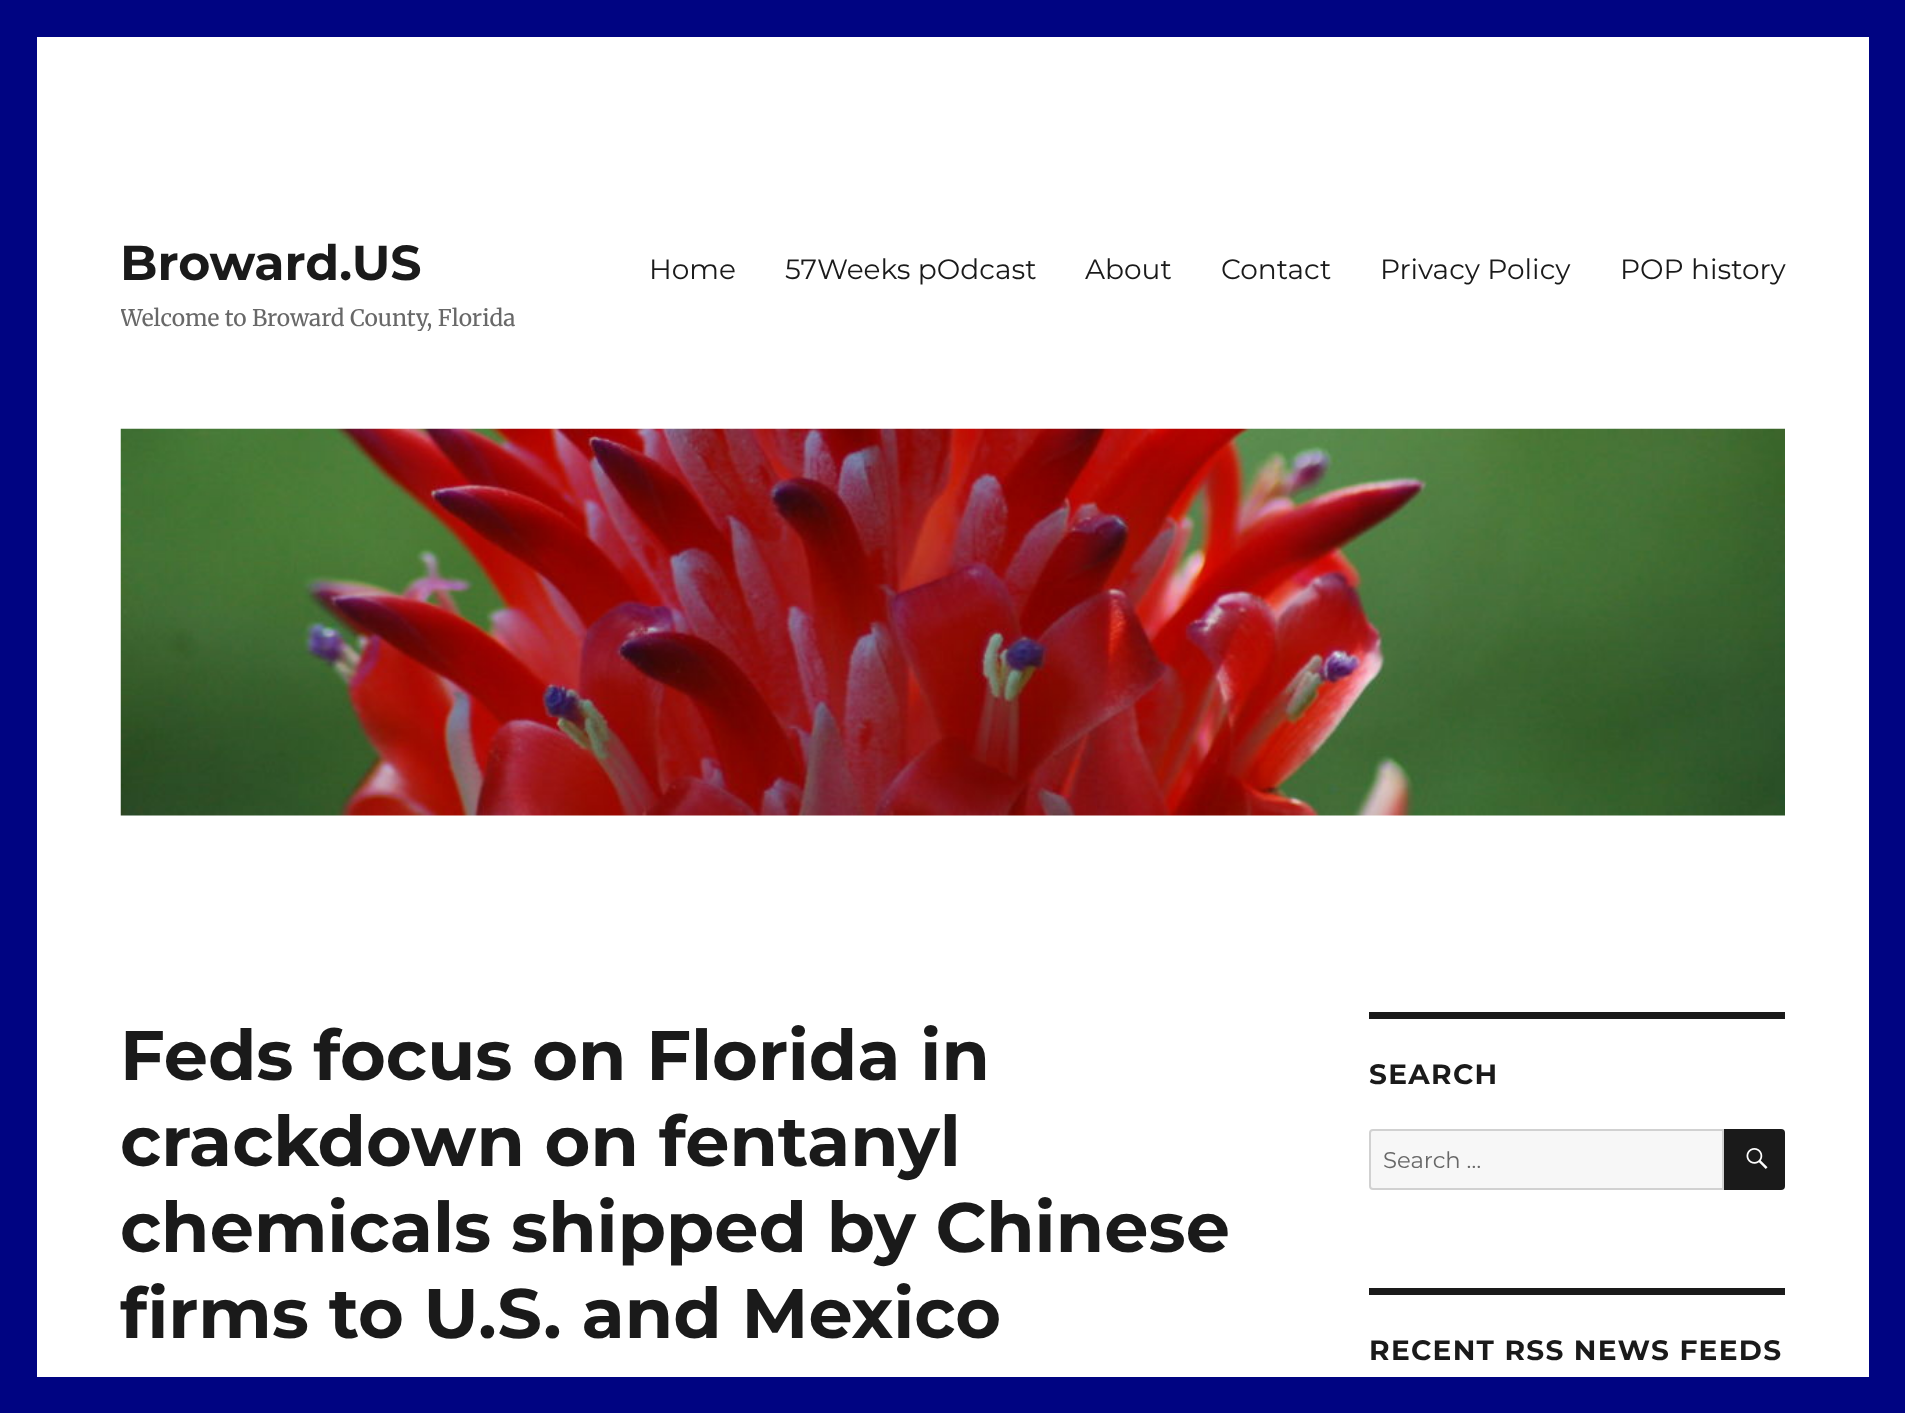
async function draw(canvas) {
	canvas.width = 1905;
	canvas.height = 1413;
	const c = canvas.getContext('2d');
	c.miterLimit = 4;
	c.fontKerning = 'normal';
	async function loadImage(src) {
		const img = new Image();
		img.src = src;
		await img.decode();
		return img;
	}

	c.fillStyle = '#000482';
	c.fillRect(0, 0, 1905, 1413);
	c.fillStyle = '#fff';
	c.fillRect(37, 37, 1832, 1340);
	c.font = 'bold 49px Montserrat';
	c.fillStyle = '#1a1a1a';
	c.fillText('Broward.US', 120, 280);
	c.save();
	c.beginPath();
	c.rect(121, 233, 395, 98);
	c.clip();
	c.font = '22.75px Merriweather';
	c.fillStyle = '#686868';
	c.fillText('Welcome to Broward County, Florida', 120, 326);
	c.restore();
	c.font = '28px Montserrat';
	for (const [text, x, y] of [
		['Home', 649, 279],
		['57Weeks pOdcast', 785, 279],
		['About', 1085, 279],
		['Contact', 1221, 279],
		['Privacy Policy', 1380, 279],
		['POP history', 1620, 279],
	]) {
		c.fillText(text, x, y);
	}
	c.drawImage(await loadImage('img1.png'), 120, 428, 1665, 388);
	c.font = 'bold 70px Montserrat';
	for (const [text, x, y] of [
		['Feds focus on Florida in', 120, 1080],
		['crackdown on fentanyl', 120, 1166],
		['chemicals shipped by Chinese', 120, 1252],
		['firms to U.S. and Mexico', 120, 1338],
	]) {
		c.fillText(text, x, y);
	}
	c.fillRect(1369, 1012, 416, 7);
	c.letterSpacing = '1.3px';
	c.font = 'bold 28px Montserrat';
	c.fillText('SEARCH', 1369, 1084);
	c.fillStyle = '#f7f7f7';
	c.beginPath();
	c.roundRect(1370, 1130, 353, 59, [3, 0, 0, 3]);
	c.fill();
	c.strokeStyle = '#d1d1d1';
	c.lineWidth = 2;
	c.stroke();
	c.letterSpacing = '0px';
	c.font = '22.75px Montserrat';
	c.fillStyle = '#686868';
	c.fillText('Search …', 1383, 1168);
	c.fillStyle = '#1a1a1a';
	c.beginPath();
	c.roundRect(1724, 1129, 61, 61, [0, 4, 4, 0]);
	c.fill();
	c.drawImage(await loadImage('img2.png'), 1746, 1148, 22, 21);
	c.fillRect(1369, 1288, 416, 7);
	c.letterSpacing = '1.3px';
	c.font = 'bold 28px Montserrat';
	c.fillText('RECENT RSS NEWS FEEDS', 1369, 1360);
}

draw(document.querySelector('canvas'));
